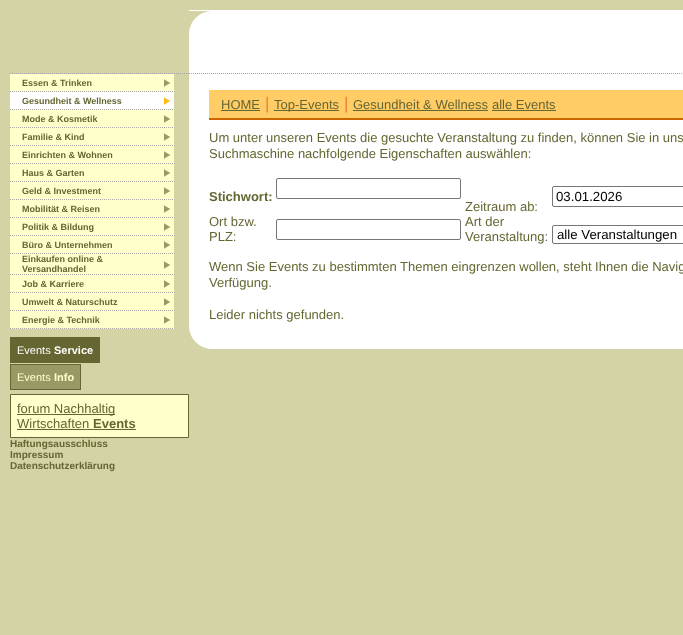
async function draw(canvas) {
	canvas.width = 683;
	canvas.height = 635;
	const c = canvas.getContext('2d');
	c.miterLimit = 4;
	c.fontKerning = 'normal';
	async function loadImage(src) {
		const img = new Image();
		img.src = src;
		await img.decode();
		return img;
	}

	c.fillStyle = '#d3d3a6';
	c.fillRect(0, 0, 683, 635);
	c.beginPath();
	c.moveTo(10, 73.5);
	c.lineTo(189, 73.5);
	c.strokeStyle = '#a6a6a6';
	c.setLineDash([1, 1]);
	c.stroke();
	c.fillStyle = '#fff';
	c.fillRect(189, 10, 494, 64);
	c.beginPath();
	c.moveTo(189, 73.5);
	c.lineTo(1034, 73.5);
	c.stroke();
	c.fillStyle = '#d3d3a6';
	c.fillRect(189, 11, 16, 16);
	c.drawImage(await loadImage('img1.png'), 189, 11, 24, 62);
	c.fillStyle = '#ffc';
	c.fillRect(10, 74, 164, 18);
	c.beginPath();
	c.moveTo(10, 91.5);
	c.lineTo(22, 91.5);
	c.stroke();
	c.beginPath();
	c.moveTo(22, 91.5);
	c.lineTo(164, 91.5);
	c.stroke();
	c.font = 'bold 9px Liberation Sans';
	c.fillStyle = '#663';
	c.fillText('Essen & Trinken', 22, 86);
	c.beginPath();
	c.moveTo(164, 91.5);
	c.lineTo(174, 91.5);
	c.stroke();
	c.drawImage(await loadImage('img2.png'), 164, 79, 7, 8);
	c.fillStyle = '#fff';
	c.fillRect(10, 92, 164, 18);
	c.beginPath();
	c.moveTo(10, 109.5);
	c.lineTo(22, 109.5);
	c.stroke();
	c.beginPath();
	c.moveTo(22, 109.5);
	c.lineTo(164, 109.5);
	c.stroke();
	c.fillStyle = '#663';
	c.fillText('Gesundheit & Wellness', 22, 104);
	c.beginPath();
	c.moveTo(164, 109.5);
	c.lineTo(174, 109.5);
	c.stroke();
	c.drawImage(await loadImage('img3.png'), 164, 97, 7, 8);
	c.fillStyle = '#ffc';
	c.fillRect(10, 110, 164, 18);
	c.beginPath();
	c.moveTo(10, 127.5);
	c.lineTo(22, 127.5);
	c.stroke();
	c.beginPath();
	c.moveTo(22, 127.5);
	c.lineTo(164, 127.5);
	c.stroke();
	c.fillStyle = '#663';
	c.fillText('Mode & Kosmetik', 22, 122);
	c.beginPath();
	c.moveTo(164, 127.5);
	c.lineTo(174, 127.5);
	c.stroke();
	c.drawImage(await loadImage('img2.png'), 164, 115, 7, 8);
	c.fillStyle = '#ffc';
	c.fillRect(10, 128, 164, 18);
	c.beginPath();
	c.moveTo(10, 145.5);
	c.lineTo(22, 145.5);
	c.stroke();
	c.beginPath();
	c.moveTo(22, 145.5);
	c.lineTo(164, 145.5);
	c.stroke();
	c.fillStyle = '#663';
	c.fillText('Familie & Kind', 22, 140);
	c.beginPath();
	c.moveTo(164, 145.5);
	c.lineTo(174, 145.5);
	c.stroke();
	c.drawImage(await loadImage('img2.png'), 164, 133, 7, 8);
	c.fillStyle = '#ffc';
	c.fillRect(10, 146, 164, 18);
	c.beginPath();
	c.moveTo(10, 163.5);
	c.lineTo(22, 163.5);
	c.stroke();
	c.beginPath();
	c.moveTo(22, 163.5);
	c.lineTo(164, 163.5);
	c.stroke();
	c.fillStyle = '#663';
	c.fillText('Einrichten & Wohnen', 22, 158);
	c.beginPath();
	c.moveTo(164, 163.5);
	c.lineTo(174, 163.5);
	c.stroke();
	c.drawImage(await loadImage('img2.png'), 164, 151, 7, 8);
	c.fillStyle = '#ffc';
	c.fillRect(10, 164, 164, 18);
	c.beginPath();
	c.moveTo(10, 181.5);
	c.lineTo(22, 181.5);
	c.stroke();
	c.beginPath();
	c.moveTo(22, 181.5);
	c.lineTo(164, 181.5);
	c.stroke();
	c.fillStyle = '#663';
	c.fillText('Haus & Garten', 22, 176);
	c.beginPath();
	c.moveTo(164, 181.5);
	c.lineTo(174, 181.5);
	c.stroke();
	c.drawImage(await loadImage('img2.png'), 164, 169, 7, 8);
	c.fillStyle = '#ffc';
	c.fillRect(10, 182, 164, 18);
	c.beginPath();
	c.moveTo(10, 199.5);
	c.lineTo(22, 199.5);
	c.stroke();
	c.beginPath();
	c.moveTo(22, 199.5);
	c.lineTo(164, 199.5);
	c.stroke();
	c.fillStyle = '#663';
	c.fillText('Geld & Investment', 22, 194);
	c.beginPath();
	c.moveTo(164, 199.5);
	c.lineTo(174, 199.5);
	c.stroke();
	c.drawImage(await loadImage('img2.png'), 164, 187, 7, 8);
	c.fillStyle = '#ffc';
	c.fillRect(10, 200, 164, 18);
	c.beginPath();
	c.moveTo(10, 217.5);
	c.lineTo(22, 217.5);
	c.stroke();
	c.beginPath();
	c.moveTo(22, 217.5);
	c.lineTo(164, 217.5);
	c.stroke();
	c.fillStyle = '#663';
	c.fillText('Mobilität & Reisen', 22, 212);
	c.beginPath();
	c.moveTo(164, 217.5);
	c.lineTo(174, 217.5);
	c.stroke();
	c.drawImage(await loadImage('img2.png'), 164, 205, 7, 8);
	c.fillStyle = '#ffc';
	c.fillRect(10, 218, 164, 18);
	c.beginPath();
	c.moveTo(10, 235.5);
	c.lineTo(22, 235.5);
	c.stroke();
	c.beginPath();
	c.moveTo(22, 235.5);
	c.lineTo(164, 235.5);
	c.stroke();
	c.fillStyle = '#663';
	c.fillText('Politik & Bildung', 22, 230);
	c.beginPath();
	c.moveTo(164, 235.5);
	c.lineTo(174, 235.5);
	c.stroke();
	c.drawImage(await loadImage('img2.png'), 164, 223, 7, 8);
	c.fillStyle = '#ffc';
	c.fillRect(10, 236, 164, 18);
	c.beginPath();
	c.moveTo(10, 253.5);
	c.lineTo(22, 253.5);
	c.stroke();
	c.beginPath();
	c.moveTo(22, 253.5);
	c.lineTo(164, 253.5);
	c.stroke();
	c.fillStyle = '#663';
	c.fillText('Büro & Unternehmen', 22, 248);
	c.beginPath();
	c.moveTo(164, 253.5);
	c.lineTo(174, 253.5);
	c.stroke();
	c.drawImage(await loadImage('img2.png'), 164, 241, 7, 8);
	c.fillStyle = '#ffc';
	c.fillRect(10, 254, 164, 21);
	c.beginPath();
	c.moveTo(10, 274.5);
	c.lineTo(22, 274.5);
	c.stroke();
	c.beginPath();
	c.moveTo(22, 274.5);
	c.lineTo(164, 274.5);
	c.stroke();
	c.fillStyle = '#663';
	c.fillText('Einkaufen online &', 22, 262);
	c.fillText('Versandhandel', 22, 272);
	c.beginPath();
	c.moveTo(164, 274.5);
	c.lineTo(174, 274.5);
	c.stroke();
	c.drawImage(await loadImage('img2.png'), 164, 261, 7, 8);
	c.fillStyle = '#ffc';
	c.fillRect(10, 275, 164, 18);
	c.beginPath();
	c.moveTo(10, 292.5);
	c.lineTo(22, 292.5);
	c.stroke();
	c.beginPath();
	c.moveTo(22, 292.5);
	c.lineTo(164, 292.5);
	c.stroke();
	c.fillStyle = '#663';
	c.fillText('Job & Karriere', 22, 287);
	c.beginPath();
	c.moveTo(164, 292.5);
	c.lineTo(174, 292.5);
	c.stroke();
	c.drawImage(await loadImage('img2.png'), 164, 280, 7, 8);
	c.fillStyle = '#ffc';
	c.fillRect(10, 293, 164, 18);
	c.beginPath();
	c.moveTo(10, 310.5);
	c.lineTo(22, 310.5);
	c.stroke();
	c.beginPath();
	c.moveTo(22, 310.5);
	c.lineTo(164, 310.5);
	c.stroke();
	c.fillStyle = '#663';
	c.fillText('Umwelt & Naturschutz', 22, 305);
	c.beginPath();
	c.moveTo(164, 310.5);
	c.lineTo(174, 310.5);
	c.stroke();
	c.drawImage(await loadImage('img2.png'), 164, 298, 7, 8);
	c.fillStyle = '#ffc';
	c.fillRect(10, 311, 164, 18);
	c.beginPath();
	c.moveTo(10, 328.5);
	c.lineTo(22, 328.5);
	c.stroke();
	c.beginPath();
	c.moveTo(22, 328.5);
	c.lineTo(164, 328.5);
	c.stroke();
	c.fillStyle = '#663';
	c.fillText('Energie & Technik', 22, 323);
	c.beginPath();
	c.moveTo(164, 328.5);
	c.lineTo(174, 328.5);
	c.stroke();
	c.drawImage(await loadImage('img2.png'), 164, 316, 7, 8);
	c.fillRect(10, 337, 90, 26);
	c.font = '11px Liberation Sans';
	c.fillStyle = '#fff';
	c.fillText('Events', 17, 354);
	c.font = 'bold 11px Liberation Sans';
	c.fillText('Service', 54, 354);
	c.fillStyle = '#996';
	c.fillRect(11, 365, 69, 24);
	c.font = '11px Liberation Sans';
	c.fillStyle = '#ffc';
	c.fillText('Events', 17, 381);
	for (const [x, y, w, h, color] of [
		[10, 364, 71, 1, '#663'],
		[10, 389, 44, 1, '#663'],
		[10, 364, 1, 26, '#663'],
	]) {
		c.fillStyle = color;
		c.fillRect(x, y, w, h);
	}
	c.font = 'bold 11px Liberation Sans';
	c.fillStyle = '#ffc';
	c.fillText('Info', 54, 381);
	c.fillStyle = '#663';
	c.fillRect(80, 364, 1, 26);
	c.fillRect(54, 389, 27, 1);
	c.fillStyle = '#ffc';
	c.beginPath();
	c.rect(10.5, 394.5, 178, 43);
	c.fill();
	c.strokeStyle = '#663';
	c.setLineDash([]);
	c.stroke();
	c.fillStyle = '#663';
	c.fillRect(17, 414, 98, 1);
	c.font = '13px Liberation Sans';
	c.fillText('forum Nachhaltig', 17, 413);
	c.fillText('Wirtschaften', 17, 428);
	c.font = 'bold 13px Liberation Sans';
	c.fillText('Events', 93, 428);
	c.fillRect(17, 429, 119, 1);
	c.font = 'bold 10px Liberation Sans';
	for (const [text, x, y] of [
		['Haftungsausschluss', 10, 447],
		['Impressum', 10, 458],
		['Datenschutzerklärung', 10, 469],
	]) {
		c.fillText(text, x, y);
	}
	for (const [x, y, w, h, color] of [
		[189, 74, 494, 254, '#fff'],
		[209, 90, 474, 28, '#fc6'],
		[209, 118, 474, 2, '#c60'],
	]) {
		c.fillStyle = color;
		c.fillRect(x, y, w, h);
	}
	c.font = '13px Liberation Sans';
	c.fillStyle = '#663';
	c.fillText('HOME', 221, 109);
	c.fillRect(221, 110, 39, 1);
	c.font = '17px Liberation Sans';
	c.fillStyle = '#ec8335';
	c.fillText('|', 265, 109);
	c.fillStyle = '#663';
	c.fillRect(274, 110, 65, 1);
	c.font = '13px Liberation Sans';
	c.fillText('Top-Events', 274, 109);
	c.font = '17px Liberation Sans';
	c.fillStyle = '#ec8335';
	c.fillText('|', 344, 109);
	c.font = '13px Liberation Sans';
	c.fillStyle = '#663';
	c.fillText('Gesundheit & Wellness', 353, 109);
	c.fillRect(353, 110, 135, 1);
	c.fillText('alle Events', 492, 109);
	c.fillRect(492, 110, 64, 1);
	c.fillText('Um unter unseren Events die gesuchte Veranstaltung zu finden, können Sie in uns', 209, 142);
	c.fillText('Suchmaschine nachfolgende Eigenschaften auswählen:', 209, 158);
	c.font = 'bold 13px Liberation Sans';
	c.fillText('Stichwort:', 209, 201);
	c.beginPath();
	c.roundRect(276.5, 178.5, 184, 20, 1.5);
	c.strokeStyle = '#767676';
	c.stroke();
	c.beginPath();
	c.roundRect(552.5, 186.5, 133, 20, 1.5);
	c.stroke();
	c.font = '13.25px Liberation Sans';
	c.fillStyle = '#000';
	c.fillText('03.01.2026', 556, 201);
	c.font = '13px Liberation Sans';
	c.fillStyle = '#663';
	for (const [text, x, y] of [
		['Zeitraum ab:', 465, 211],
		['Ort bzw.', 209, 226],
		['PLZ:', 209, 241],
	]) {
		c.fillText(text, x, y);
	}
	c.beginPath();
	c.roundRect(276.5, 219.5, 184, 20, 1.5);
	c.stroke();
	c.fillText('Art der', 465, 226);
	c.fillText('Veranstaltung:', 465, 241);
	c.beginPath();
	c.roundRect(552.5, 225.5, 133, 18, 1.5);
	c.stroke();
	c.font = '13.25px Liberation Sans';
	c.fillStyle = '#000';
	c.fillText('alle Veranstaltungen', 557, 239);
	c.font = '13px Liberation Sans';
	c.fillStyle = '#663';
	for (const [text, x, y] of [
		['Wenn Sie Events zu bestimmten Themen eingrenzen wollen, steht Ihnen die Navig', 209, 271],
		['Verfügung.', 209, 287],
		['Leider nichts gefunden.', 209, 319],
	]) {
		c.fillText(text, x, y);
	}
	c.drawImage(await loadImage('img4.png'), 189, 328, 20, 21);
	c.fillStyle = '#fff';
	c.fillRect(209, 328, 474, 21);
}

draw(document.querySelector('canvas'));
